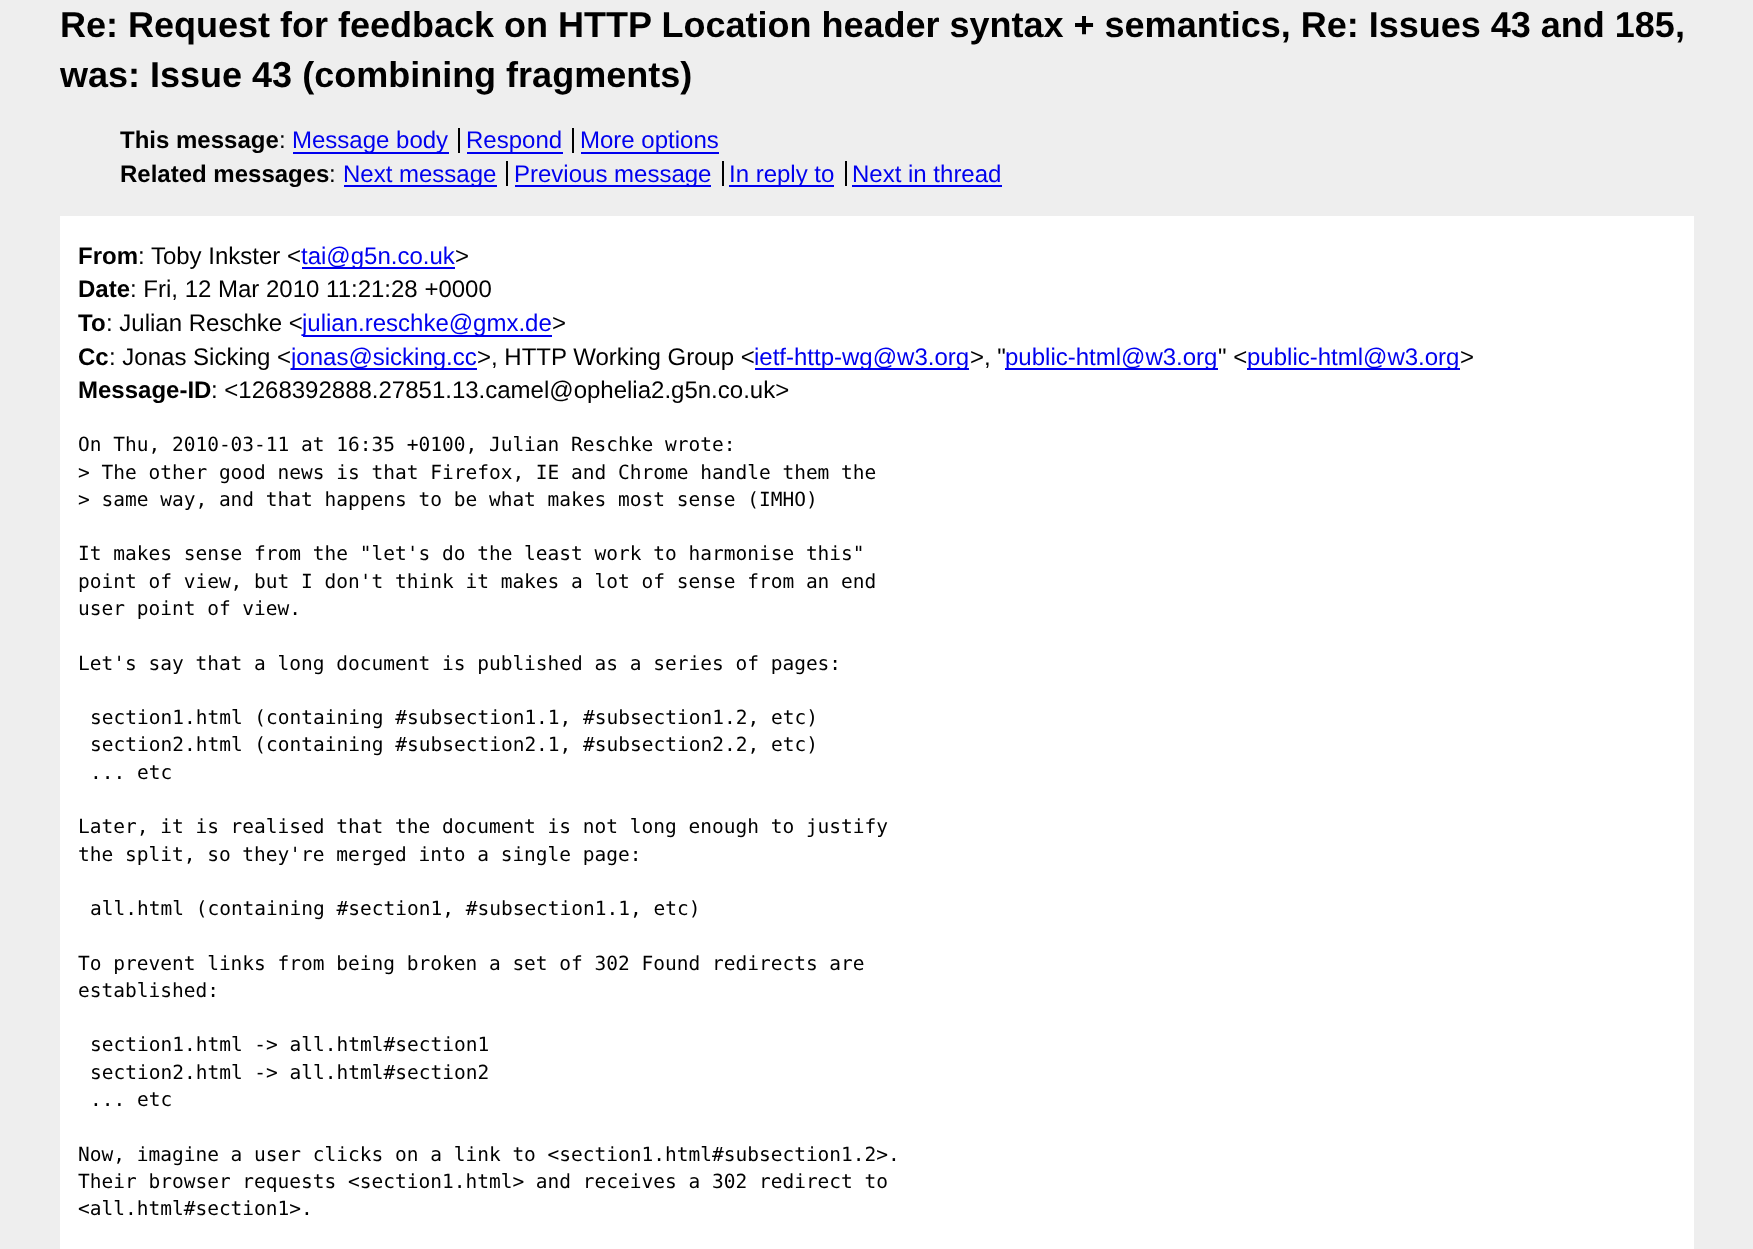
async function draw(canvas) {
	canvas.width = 1753;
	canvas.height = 1249;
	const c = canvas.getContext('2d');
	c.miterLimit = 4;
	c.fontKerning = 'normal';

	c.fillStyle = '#eee';
	c.fillRect(0, 0, 1753, 1249);
	c.font = 'bold 36px Liberation Sans';
	c.fillStyle = '#000';
	c.fillText('Re: Request for feedback on HTTP Location header syntax + semantics, Re: Issues 43 and 185,', 60, 37);
	c.fillText('was: Issue 43 (combining fragments)', 60, 87);
	c.font = 'bold 24px Liberation Sans';
	c.fillText('This message', 120, 148);
	c.font = '24px Liberation Sans';
	c.fillText(':', 279, 148);
	c.fillStyle = '#00e';
	c.fillRect(293, 152, 156, 2);
	c.fillText('Message body', 292, 148);
	c.fillRect(467, 152, 96, 2);
	c.fillText('Respond', 466, 148);
	c.fillStyle = '#000';
	c.fillRect(458, 128, 2, 25);
	c.fillStyle = '#00e';
	c.fillRect(581, 152, 138, 2);
	c.fillText('More options', 580, 148);
	c.fillStyle = '#000';
	c.fillRect(572, 128, 2, 25);
	c.font = 'bold 24px Liberation Sans';
	c.fillText('Related messages', 120, 182);
	c.font = '24px Liberation Sans';
	c.fillText(':', 329, 182);
	c.fillStyle = '#00e';
	c.fillRect(344, 185, 153, 2);
	c.fillText('Next message', 343, 182);
	c.fillRect(515, 185, 196, 2);
	c.fillText('Previous message', 514, 182);
	c.fillStyle = '#000';
	c.fillRect(506, 161, 2, 25);
	c.fillStyle = '#00e';
	c.fillRect(729, 185, 105, 2);
	c.fillText('In reply to', 729, 182);
	c.fillStyle = '#000';
	c.fillRect(722, 161, 2, 25);
	c.fillStyle = '#00e';
	c.fillText('Next in thread', 852, 182);
	for (const [x, y, w, h, color] of [
		[845, 161, 2, 25, '#000'],
		[852, 185, 150, 2, '#00e'],
		[60, 216, 1634, 1033, '#fff'],
	]) {
		c.fillStyle = color;
		c.fillRect(x, y, w, h);
	}
	c.font = 'bold 24px Liberation Sans';
	c.fillStyle = '#000';
	c.fillText('From', 78, 264);
	c.font = '24px Liberation Sans';
	c.fillText(': Toby Inkster <', 138, 264);
	c.fillStyle = '#00e';
	c.fillRect(302, 267, 153, 2);
	c.fillText('tai@g5n.co.uk', 301, 264);
	c.fillStyle = '#000';
	c.fillText('>', 455, 264);
	c.font = 'bold 24px Liberation Sans';
	c.fillText('Date', 78, 297);
	c.font = '24px Liberation Sans';
	c.fillText(': Fri, 12 Mar 2010 11:21:28 +0000', 130, 297);
	c.font = 'bold 24px Liberation Sans';
	c.fillText('To', 78, 331);
	c.font = '24px Liberation Sans';
	c.fillText(': Julian Reschke <', 106, 331);
	c.fillStyle = '#00e';
	c.fillRect(303, 335, 249, 2);
	c.fillText('julian.reschke@gmx.de', 302, 331);
	c.fillStyle = '#000';
	c.fillText('>', 552, 331);
	c.font = 'bold 24px Liberation Sans';
	c.fillText('Cc', 78, 365);
	c.font = '24px Liberation Sans';
	c.fillText(': Jonas Sicking <', 109, 365);
	c.fillStyle = '#00e';
	c.fillRect(291, 368, 186, 2);
	c.fillText('jonas@sicking.cc', 291, 365);
	c.fillStyle = '#000';
	c.fillText('>, HTTP Working Group <', 477, 365);
	c.fillStyle = '#00e';
	c.fillRect(755, 368, 214, 2);
	c.fillText('ietf-http-wg@w3.org', 754, 365);
	c.fillStyle = '#000';
	c.fillText('>, "', 970, 365);
	c.fillStyle = '#00e';
	c.fillRect(1005, 368, 213, 2);
	c.fillText('public-html@w3.org', 1005, 365);
	c.fillStyle = '#000';
	c.fillText('" <', 1218, 365);
	c.fillStyle = '#00e';
	c.fillRect(1247, 368, 213, 2);
	c.fillText('public-html@w3.org', 1247, 365);
	c.fillStyle = '#000';
	c.fillText('>', 1460, 365);
	c.font = 'bold 24px Liberation Sans';
	c.fillText('Message-ID', 78, 398);
	c.font = '24px Liberation Sans';
	c.fillText(': <1268392888.27851.13.camel@ophelia2.g5n.co.uk>', 211, 398);
	c.font = '19.5px DejaVu Sans Mono';
	for (const [text, x, y] of [
		['On Thu, 2010-03-11 at 16:35 +0100, Julian Reschke wrote:', 78, 451],
		['> The other good news is that Firefox, IE and Chrome handle them the', 78, 479],
		['> same way, and that happens to be what makes most sense (IMHO)', 78, 506],
		['It makes sense from the "let\'s do the least work to harmonise this"', 78, 560],
		['point of view, but I don\'t think it makes a lot of sense from an end', 78, 588],
		['user point of view.', 78, 615],
		['Let\'s say that a long document is published as a series of pages:', 78, 670],
		['section1.html (containing #subsection1.1, #subsection1.2, etc)', 90, 724],
		['section2.html (containing #subsection2.1, #subsection2.2, etc)', 90, 751],
		['... etc', 90, 779],
		['Later, it is realised that the document is not long enough to justify', 78, 833],
		['the split, so they\'re merged into a single page:', 78, 861],
		['all.html (containing #section1, #subsection1.1, etc)', 90, 915],
		['To prevent links from being broken a set of 302 Found redirects are', 78, 970],
		['established:', 78, 997],
		['section1.html -> all.html#section1', 90, 1051],
		['section2.html -> all.html#section2', 90, 1079],
		['... etc', 90, 1106],
		['Now, imagine a user clicks on a link to <section1.html#subsection1.2>.', 78, 1161],
		['Their browser requests <section1.html> and receives a 302 redirect to', 78, 1188],
		['<all.html#section1>.', 78, 1215],
	]) {
		c.fillText(text, x, y);
	}
}

draw(document.querySelector('canvas'));
